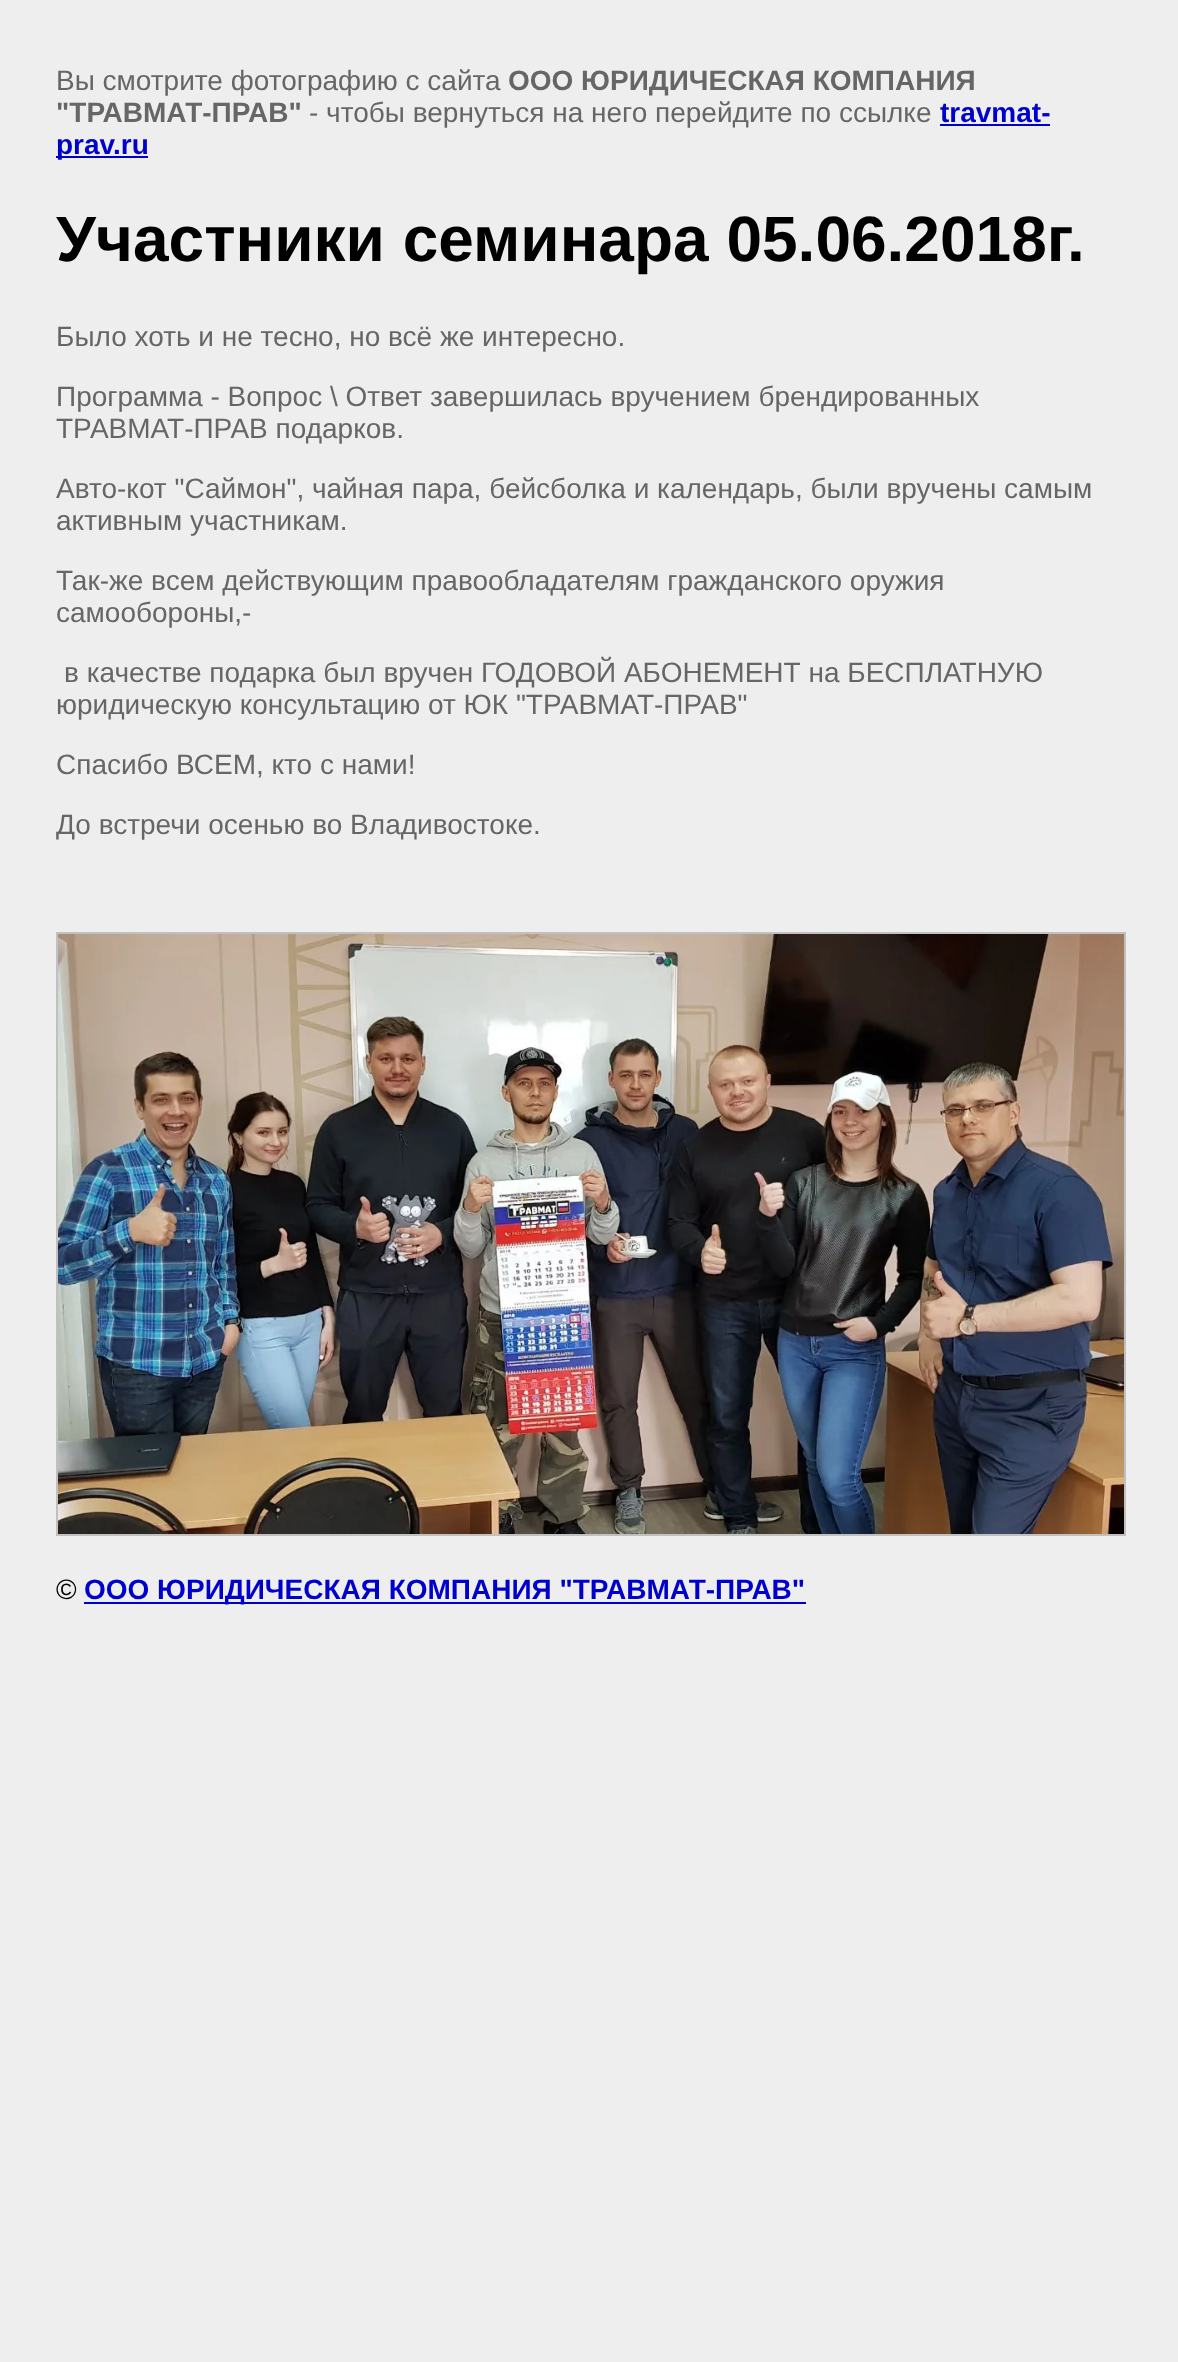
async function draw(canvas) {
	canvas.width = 1178;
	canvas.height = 2362;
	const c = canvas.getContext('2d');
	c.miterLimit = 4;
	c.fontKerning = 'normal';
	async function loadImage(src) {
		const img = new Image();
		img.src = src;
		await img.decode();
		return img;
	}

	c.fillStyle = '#eee';
	c.fillRect(0, 0, 1178, 2362);
	c.font = '28px Liberation Sans';
	c.fillStyle = '#666';
	c.fillText('Вы смотрите фотографию с сайта', 56, 90);
	c.font = 'bold 28px Liberation Sans';
	c.fillText('ООО ЮРИДИЧЕСКАЯ КОМПАНИЯ', 508, 90);
	c.fillText('"ТРАВМАТ-ПРАВ"', 56, 122);
	c.font = '28px Liberation Sans';
	c.fillText('- чтобы вернуться на него перейдите по ссылке', 309, 122);
	c.font = 'bold 28px Liberation Sans';
	c.fillStyle = '#00c';
	c.fillText('travmat-', 940, 122);
	c.fillRect(940, 124, 110, 2);
	c.fillRect(56, 156, 92, 2);
	c.fillText('prav.ru', 56, 154);
	c.font = 'bold 64px Liberation Sans';
	c.fillStyle = '#000';
	c.fillText('Участники семинара 05.06.2018г.', 56, 261);
	c.font = '28px Liberation Sans';
	c.fillStyle = '#666';
	for (const [text, x, y] of [
		['Было хоть и не тесно, но всё же интересно.', 56, 346],
		['Программа - Вопрос \\ Ответ завершилась вручением брендированных', 56, 406],
		['ТРАВМАТ-ПРАВ подарков.', 56, 438],
		['Авто-кот "Саймон", чайная пара, бейсболка и календарь, были вручены самым', 56, 498],
		['активным участникам.', 56, 530],
		['Так-же всем действующим правообладателям гражданского оружия', 56, 590],
		['самообороны,-', 56, 622],
		['в качестве подарка был вручен ГОДОВОЙ АБОНЕМЕНТ на БЕСПЛАТНУЮ', 64, 682],
		['юридическую консультацию от ЮК "ТРАВМАТ-ПРАВ"', 56, 714],
		['Спасибо ВСЕМ, кто с нами!', 56, 774],
		['До встречи осенью во Владивостоке.', 56, 834],
	]) {
		c.fillText(text, x, y);
	}
	c.strokeStyle = '#c0c0c0';
	c.lineWidth = 2;
	c.strokeRect(57, 933, 1068, 602);
	c.drawImage(await loadImage('img1.png'), 58, 934, 1066, 600);
	c.fillStyle = '#000';
	c.fillText('©', 56, 1599);
	c.fillStyle = '#00c';
	c.fillRect(84, 1602, 722, 2);
	c.font = 'bold 28px Liberation Sans';
	c.fillText('ООО ЮРИДИЧЕСКАЯ КОМПАНИЯ "ТРАВМАТ-ПРАВ"', 84, 1599);
}

draw(document.querySelector('canvas'));
